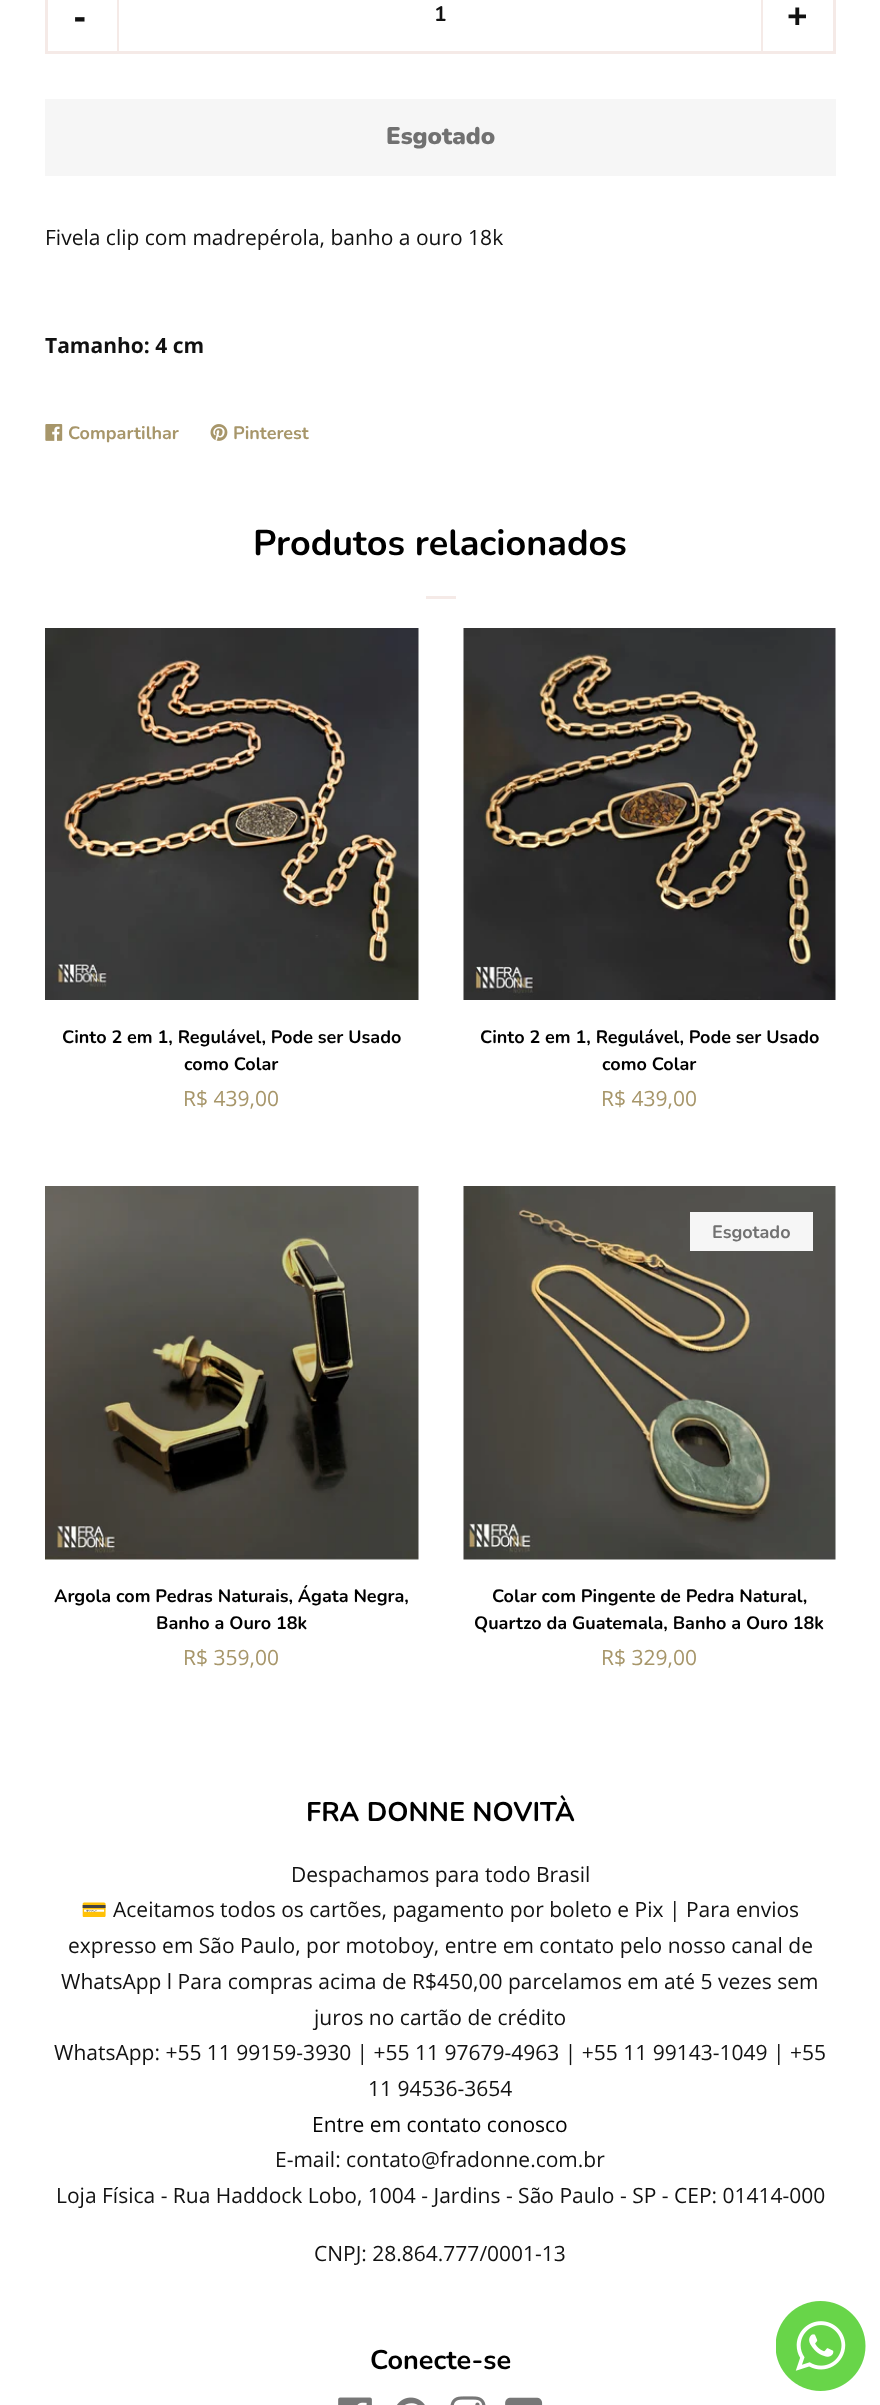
async function draw(canvas) {
	canvas.width = 880;
	canvas.height = 2405;
	const c = canvas.getContext('2d');
	c.miterLimit = 4;
	c.fontKerning = 'normal';
	async function loadImage(src) {
		const img = new Image();
		img.src = src;
		await img.decode();
		return img;
	}

	c.fillStyle = '#fff';
	c.fillRect(0, 0, 880, 2405);
	c.strokeStyle = '#f5eae7';
	c.lineWidth = 3;
	c.strokeRect(46.5, -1.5, 788, 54);
	c.fillStyle = '#f5eae7';
	c.fillRect(117, 0, 2, 54);
	c.font = 'bold 36px Open Sans';
	c.fillStyle = '#111';
	c.fillText('-', 74, 29);
	c.font = 'bold 21px Nunito';
	c.fillText('1', 434, 21);
	c.fillStyle = '#f5eae7';
	c.fillRect(761, 0, 2, 54);
	c.font = 'bold 36px Open Sans';
	c.fillStyle = '#111';
	c.fillText('+', 787, 29);
	c.fillStyle = '#f6f6f6';
	c.fillRect(45, 99, 791, 77);
	c.font = '900 24px Nunito';
	c.fillStyle = '#717171';
	c.fillText('Esgotado', 386, 144);
	c.font = '21px Open Sans';
	c.fillStyle = '#111';
	c.fillText('Fivela clip com madrepérola, banho a ouro 18k', 45, 245);
	c.font = 'bold 21px Open Sans';
	c.fillText('Tamanho: 4 cm', 45, 353);
	c.drawImage(await loadImage('img1.png'), 45, 424, 18, 17);
	c.font = 'bold 18px Nunito';
	c.fillStyle = '#a7966a';
	c.fillText('Compartilhar', 68, 439);
	c.drawImage(await loadImage('img2.png'), 210, 424, 18, 17);
	c.fillText('Pinterest', 233, 439);
	c.font = 'bold 36px Nunito';
	c.fillStyle = '#000';
	c.fillText('Produtos relacionados', 253, 555);
	c.fillStyle = '#f5eae7';
	c.fillRect(426, 596, 30, 3);
	c.drawImage(await loadImage('img3.png'), 45, 628, 374, 372);
	c.font = 'bold 18px Nunito';
	c.fillStyle = '#000';
	c.fillText('Cinto 2 em 1, Regulável, Pode ser Usado', 62, 1043);
	c.fillText('como Colar', 184, 1070);
	c.font = '21px Open Sans';
	c.fillStyle = '#a7966a';
	c.fillText('R$ 439,00', 183, 1106);
	c.drawImage(await loadImage('img4.png'), 463, 628, 373, 372);
	c.font = 'bold 18px Nunito';
	c.fillStyle = '#000';
	c.fillText('Cinto 2 em 1, Regulável, Pode ser Usado', 480, 1043);
	c.fillText('como Colar', 602, 1070);
	c.font = '21px Open Sans';
	c.fillStyle = '#a7966a';
	c.fillText('R$ 439,00', 601, 1106);
	c.drawImage(await loadImage('img5.png'), 45, 1186, 374, 374);
	c.font = 'bold 18px Nunito';
	c.fillStyle = '#000';
	c.fillText('Argola com Pedras Naturais, Ágata Negra,', 54, 1602);
	c.fillText('Banho a Ouro 18k', 156, 1629);
	c.font = '21px Open Sans';
	c.fillStyle = '#a7966a';
	c.fillText('R$ 359,00', 183, 1665);
	c.drawImage(await loadImage('img6.png'), 463, 1186, 373, 374);
	c.fillStyle = '#f6f6f6';
	c.fillRect(690, 1212, 123, 39);
	c.font = 'bold 18px Nunito';
	c.fillStyle = '#717171';
	c.fillText('Esgotado', 712, 1238);
	c.fillStyle = '#000';
	c.fillText('Colar com Pingente de Pedra Natural,', 492, 1602);
	c.fillText('Quartzo da Guatemala, Banho a Ouro 18k', 474, 1629);
	c.font = '21px Open Sans';
	c.fillStyle = '#a7966a';
	c.fillText('R$ 329,00', 601, 1665);
	c.font = 'bold 27px Nunito';
	c.fillStyle = '#000';
	c.fillText('FRA DONNE NOVITÀ', 306, 1821);
	c.font = '21px Open Sans';
	c.fillStyle = '#111';
	c.fillText('Despachamos para todo Brasil', 291, 1882);
	c.font = '21px Noto Color Emoji';
	c.fillText('💳', 81, 1917);
	c.font = '21px Open Sans';
	for (const [text, x, y] of [
		['Aceitamos todos os cartões, pagamento por boleto e Pix | Para envios', 113, 1917],
		['expresso em São Paulo, por motoboy, entre em contato pelo nosso canal de', 68, 1953],
		['WhatsApp l Para compras acima de R$450,00 parcelamos em até 5 vezes sem', 61, 1989],
		['juros no cartão de crédito', 314, 2025],
		['WhatsApp: +55 11 99159-3930 | +55 11 97679-4963 | +55 11 99143-1049 | +55', 54, 2060],
		['11 94536-3654', 368, 2096],
	]) {
		c.fillText(text, x, y);
	}
	c.fillStyle = '#000';
	c.fillText('Entre em contato conosco', 312, 2132);
	c.fillStyle = '#111';
	for (const [text, x, y] of [
		['E-mail: contato@fradonne.com.br', 275, 2167],
		['Loja Física - Rua Haddock Lobo, 1004 - Jardins - São Paulo - SP - CEP: 01414-000', 56, 2203],
		['CNPJ: 28.864.777/0001-13', 314, 2261],
	]) {
		c.fillText(text, x, y);
	}
	c.font = 'bold 27px Nunito';
	c.fillStyle = '#000';
	c.fillText('Conecte-se', 370, 2369);
	c.drawImage(await loadImage('img7.png'), 338, 2397, 34, 8);
	c.drawImage(await loadImage('img8.png'), 397, 2397, 28, 8);
	c.drawImage(await loadImage('img9.png'), 450, 2396, 36, 9);
	c.drawImage(await loadImage('img10.png'), 505, 2397, 38, 8);
	c.drawImage(await loadImage('img11.png'), 776, 2301, 90, 90);
}

draw(document.querySelector('canvas'));
